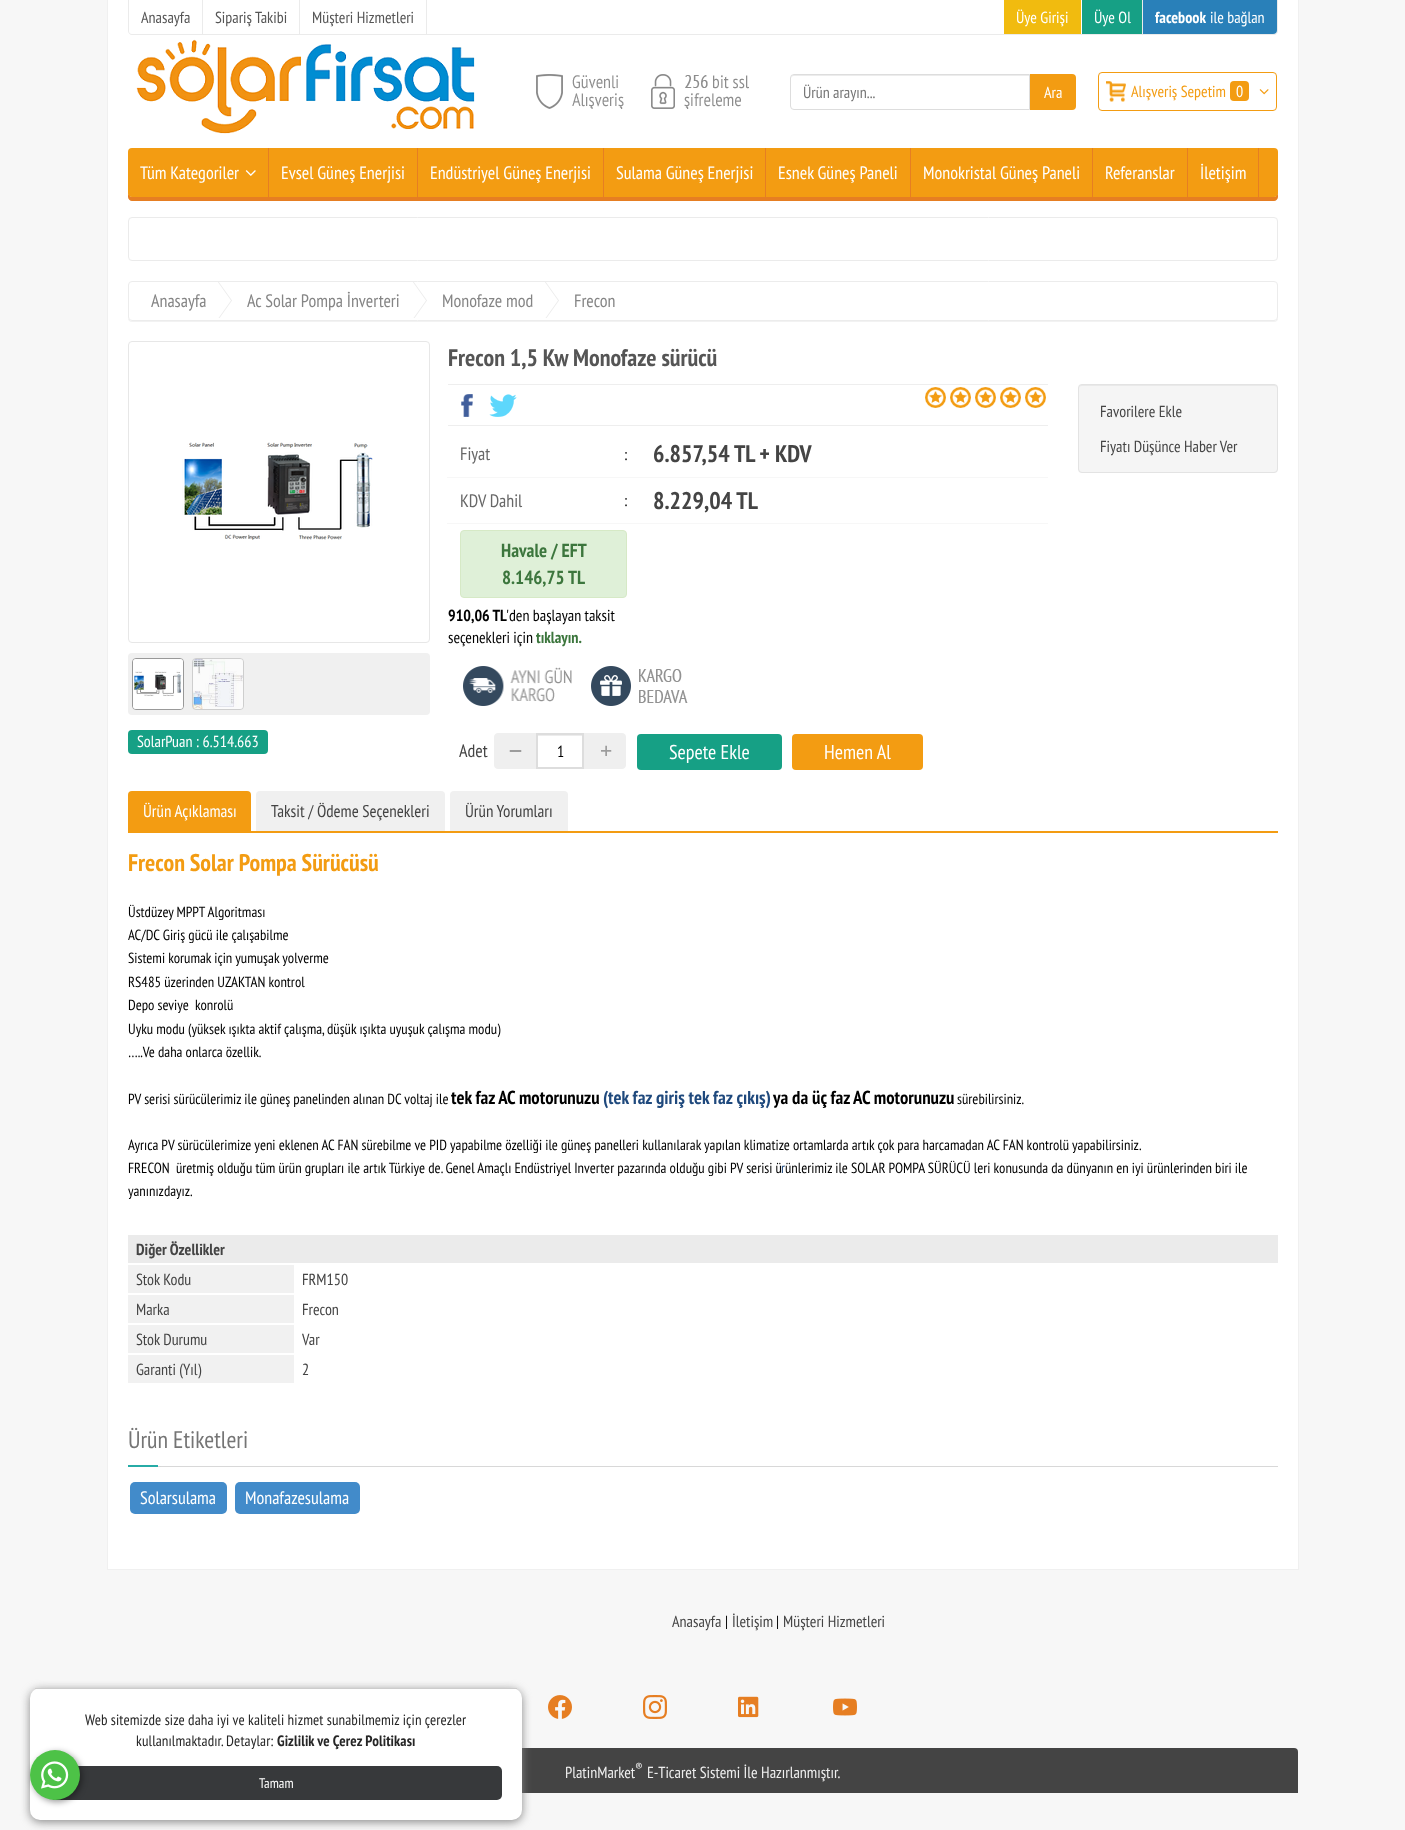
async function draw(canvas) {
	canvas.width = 1405;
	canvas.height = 1830;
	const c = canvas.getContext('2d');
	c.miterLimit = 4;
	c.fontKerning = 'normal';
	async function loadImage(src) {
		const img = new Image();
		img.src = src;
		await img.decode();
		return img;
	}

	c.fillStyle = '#f7f7f7';
	c.fillRect(0, 0, 1405, 1830);
	for (const [x, y, w, h, color] of [
		[108, 0, 1190, 1569, '#fff'],
		[1298, 0, 1, 1569, '#f0f0f0'],
		[107, 0, 1, 1569, '#f0f0f0'],
	]) {
		c.fillStyle = color;
		c.fillRect(x, y, w, h);
	}
	c.fillStyle = '#ebebeb';
	c.beginPath();
	c.moveTo(128, 0);
	c.lineTo(1278, 0);
	c.lineTo(1278, 31);
	c.bezierCurveTo(1278, 33, 1276, 35, 1274, 35);
	c.lineTo(132, 35);
	c.bezierCurveTo(130, 35, 128, 33, 128, 31);
	c.closePath();
	c.moveTo(129, 0);
	c.lineTo(1277, 0);
	c.lineTo(1277, 31);
	c.bezierCurveTo(1277, 33, 1276, 34, 1274, 34);
	c.lineTo(132, 34);
	c.bezierCurveTo(130, 34, 129, 33, 129, 31);
	c.closePath();
	c.fill('evenodd');
	c.fillRect(202, 0, 1, 34);
	c.font = '16px PT Sans Narrow';
	c.fillStyle = '#555';
	c.fillText('Anasayfa', 141, 23);
	c.fillStyle = '#ebebeb';
	c.fillRect(299, 0, 1, 34);
	c.fillStyle = '#555';
	c.fillText('Sipariş Takibi', 215, 23);
	c.fillStyle = '#ebebeb';
	c.fillRect(426, 0, 1, 34);
	c.fillStyle = '#555';
	c.fillText('Müşteri Hizmetleri', 312, 23);
	c.fillStyle = '#f1bb0f';
	c.fillRect(1004, 0, 77, 34);
	c.fillStyle = '#fff';
	c.fillText('Üye Girişi', 1016, 23);
	c.fillStyle = '#16a085';
	c.fillRect(1082, 0, 60, 34);
	c.fillStyle = '#fff';
	c.fillText('Üye Ol', 1094, 23);
	c.fillStyle = '#2980b9';
	c.beginPath();
	c.roundRect(1142, 0, 135, 34, [0, 0, 4, 0]);
	c.fill();
	c.fillStyle = '#ebebeb';
	c.fillRect(1142, 0, 1, 34);
	c.font = 'bold 16px PT Sans Narrow';
	c.fillStyle = '#fff';
	c.fillText('facebook', 1155, 23);
	c.font = '16px PT Sans Narrow';
	c.fillText('ile bağlan', 1210, 23);
	c.drawImage(await loadImage('img1.png'), 136, 39, 339, 95);
	c.drawImage(await loadImage('img2.png'), 536, 74, 213, 35);
	c.fillStyle = '#ececec';
	c.beginPath();
	c.moveTo(794, 76);
	c.lineTo(1029, 76);
	c.lineTo(1029, 75);
	c.lineTo(794, 75);
	c.bezierCurveTo(792, 75, 791, 77, 791, 79);
	c.bezierCurveTo(791, 77, 792, 76, 794, 76);
	c.closePath();
	c.fill();
	c.beginPath();
	c.roundRect(790.5, 74.5, 239, 35, [3.5, 0, 0, 3.5]);
	c.strokeStyle = '#ddd';
	c.stroke();
	c.fillStyle = '#757575';
	c.fillText('Ürün arayın...', 803, 98);
	c.fillStyle = '#f39c12';
	c.beginPath();
	c.roundRect(1030, 74, 46, 36, [0, 4, 4, 0]);
	c.fill();
	c.fillStyle = '#fff';
	c.fillText('Ara', 1044, 98);
	c.drawImage(await loadImage('img3.png'), 1106, 81, 20, 21);
	c.beginPath();
	c.roundRect(1098.5, 72.5, 178, 38, 3.5);
	c.strokeStyle = '#f39c12';
	c.stroke();
	c.fillStyle = '#f39c12';
	c.fillText('Alışveriş Sepetim', 1131, 97);
	c.beginPath();
	c.roundRect(1230, 81, 19, 20, 4);
	c.fill();
	c.fillStyle = '#fff';
	c.fillText('0', 1236, 97);
	c.drawImage(await loadImage('img4.png'), 1259, 89, 10, 6);
	c.fillStyle = '#f39c12';
	c.beginPath();
	c.roundRect(128, 148, 1150, 49, 4);
	c.fill();
	c.fillStyle = '#e67e22';
	c.beginPath();
	c.moveTo(128, 193);
	c.lineTo(128, 197);
	c.bezierCurveTo(128, 199, 130, 201, 132, 201);
	c.lineTo(1274, 201);
	c.bezierCurveTo(1276, 201, 1278, 199, 1278, 197);
	c.lineTo(1278, 193);
	c.bezierCurveTo(1278, 195, 1276, 197, 1274, 197);
	c.lineTo(132, 197);
	c.bezierCurveTo(130, 197, 128, 195, 128, 193);
	c.closePath();
	c.fill();
	c.fillRect(268, 148, 1, 49);
	c.font = '18px PT Sans Narrow';
	c.fillStyle = '#fff';
	c.fillText('Tüm Kategoriler', 140, 179);
	c.drawImage(await loadImage('img5.png'), 245, 170, 11, 6);
	c.fillStyle = '#e67e22';
	c.fillRect(417, 148, 1, 49);
	c.fillStyle = '#fff';
	c.fillText('Evsel Güneş Enerjisi', 281, 179);
	c.fillStyle = '#e67e22';
	c.fillRect(603, 148, 1, 49);
	c.fillStyle = '#fff';
	c.fillText('Endüstriyel Güneş Enerjisi', 430, 179);
	c.fillStyle = '#e67e22';
	c.fillRect(765, 148, 1, 49);
	c.fillStyle = '#fff';
	c.fillText('Sulama Güneş Enerjisi', 616, 179);
	c.fillStyle = '#e67e22';
	c.fillRect(910, 148, 1, 49);
	c.fillStyle = '#fff';
	c.fillText('Esnek Güneş Paneli', 778, 179);
	c.fillStyle = '#e67e22';
	c.fillRect(1092, 148, 1, 49);
	c.fillStyle = '#fff';
	c.fillText('Monokristal Güneş Paneli', 923, 179);
	c.fillStyle = '#e67e22';
	c.fillRect(1187, 148, 1, 49);
	c.fillStyle = '#fff';
	c.fillText('Referanslar', 1105, 179);
	c.fillStyle = '#e67e22';
	c.fillRect(1258, 148, 1, 49);
	c.fillStyle = '#fff';
	c.fillText('İletişim', 1200, 179);
	c.beginPath();
	c.roundRect(128.5, 217.5, 1149, 43, 3.5);
	c.strokeStyle = '#ebebeb';
	c.stroke();
	c.fillStyle = '#444';
	c.beginPath();
	c.roundRect(108, 1748, 1190, 45, [4, 4, 0, 0]);
	c.fill();
	c.fillStyle = '#888';
	c.filter = 'blur(5px)';
	c.beginPath();
	c.roundRect(30, 1690, 492, 132, 10);
	c.fill();
	c.filter = 'none';
	c.fillStyle = '#fff';
	c.beginPath();
	c.roundRect(30, 1688, 492, 132, 10);
	c.fill();
	c.fillStyle = '#ccc';
	c.fillRect(35, 1688, 482, 1);
	c.letterSpacing = '0.1px';
	c.font = '15px PT Sans Narrow';
	c.fillStyle = '#262626';
	c.fillText('Web sitemizde size daha iyi ve kaliteli hizmet sunabilmemiz için çerezler', 85, 1725);
	c.fillText('kullanılmaktadır. Detaylar:', 136, 1746);
	c.font = 'bold 15px PT Sans Narrow';
	c.fillText('Gizlilik ve Çerez Politikası', 277, 1746);
	c.fillStyle = '#37393b';
	c.beginPath();
	c.roundRect(50, 1766, 452, 34, 5);
	c.fill();
	c.letterSpacing = '0px';
	c.font = '14px PT Sans Narrow';
	c.fillStyle = '#fff';
	c.fillText('Tamam', 259, 1788);
	c.save();
	c.beginPath();
	c.moveTo(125, 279);
	c.lineTo(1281, 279);
	c.lineTo(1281, 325);
	c.lineTo(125, 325);
	c.closePath();
	c.moveTo(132, 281);
	c.lineTo(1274, 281);
	c.bezierCurveTo(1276, 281, 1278, 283, 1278, 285);
	c.lineTo(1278, 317);
	c.bezierCurveTo(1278, 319, 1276, 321, 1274, 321);
	c.lineTo(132, 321);
	c.bezierCurveTo(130, 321, 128, 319, 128, 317);
	c.lineTo(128, 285);
	c.bezierCurveTo(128, 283, 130, 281, 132, 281);
	c.closePath();
	c.clip('evenodd');
	c.fillStyle = '#0000000d';
	c.filter = 'blur(0.5px)';
	c.beginPath();
	c.roundRect(128, 282, 1150, 40, 4);
	c.fill();
	c.filter = 'none';
	c.restore();
	c.beginPath();
	c.roundRect(128.5, 281.5, 1149, 39, 3.5);
	c.strokeStyle = '#ececec';
	c.stroke();
	c.font = '18px PT Sans Narrow';
	c.fillStyle = '#858585';
	c.fillText('Anasayfa', 151, 307);
	c.drawImage(await loadImage('img6.png'), 218, 282, 14, 36);
	c.fillText('Ac Solar Pompa İnverteri', 247, 307);
	c.drawImage(await loadImage('img6.png'), 413, 282, 14, 36);
	c.fillText('Monofaze mod', 442, 307);
	c.drawImage(await loadImage('img6.png'), 545, 282, 14, 36);
	c.fillText('Frecon', 574, 307);
	c.font = 'bold 24px PT Sans Narrow';
	c.fillStyle = '#555';
	c.fillText('Frecon 1,5 Kw Monofaze sürücü', 448, 366);
	c.fillStyle = '#eee';
	c.fillRect(448, 384, 600, 1);
	c.fillRect(448, 425, 600, 1);
	c.drawImage(await loadImage('img7.png'), 461, 394, 12, 23);
	c.drawImage(await loadImage('img8.png'), 489, 394, 28, 23);
	c.drawImage(await loadImage('img9.png'), 925, 387, 121, 21);
	c.fillStyle = '#f5f5f5';
	c.beginPath();
	c.roundRect(1078, 384, 200, 89, 4);
	c.fill();
	c.fillStyle = '#e9e9e9';
	c.beginPath();
	c.moveTo(1082, 386);
	c.lineTo(1274, 386);
	c.bezierCurveTo(1276, 386, 1277, 387, 1277, 389);
	c.bezierCurveTo(1277, 387, 1276, 385, 1274, 385);
	c.lineTo(1082, 385);
	c.bezierCurveTo(1080, 385, 1079, 387, 1079, 389);
	c.bezierCurveTo(1079, 387, 1080, 386, 1082, 386);
	c.closePath();
	c.fill();
	c.beginPath();
	c.roundRect(1078.5, 384.5, 199, 88, 3.5);
	c.strokeStyle = '#e3e3e3';
	c.stroke();
	c.font = '16px PT Sans Narrow';
	c.fillStyle = '#444';
	c.fillText('Favorilere Ekle', 1100, 417);
	c.fillText('Fiyatı Düşünce Haber Ver', 1100, 452);
	c.beginPath();
	c.roundRect(128.5, 341.5, 301, 301, 3.5);
	c.strokeStyle = '#e7e7e7';
	c.stroke();
	c.drawImage(await loadImage('img10.png'), 182, 442, 191, 98);
	c.fillStyle = '#f0f0f0';
	c.beginPath();
	c.roundRect(128, 653, 302, 62, 4);
	c.fill();
	c.beginPath();
	c.roundRect(132.5, 658.5, 51, 51, 3.5);
	c.strokeStyle = '#999';
	c.stroke();
	c.drawImage(await loadImage('img11.png'), 133, 659, 50, 50);
	c.beginPath();
	c.roundRect(192.5, 658.5, 51, 51, 3.5);
	c.strokeStyle = '#cecece';
	c.stroke();
	c.drawImage(await loadImage('img12.png'), 193, 659, 50, 50);
	c.fillStyle = '#16a085';
	c.beginPath();
	c.roundRect(128, 730, 140, 24, 4);
	c.fill();
	c.fillStyle = '#fff';
	c.fillText('SolarPuan : 6.514.663', 137, 747);
	c.font = '18px PT Sans Narrow';
	c.fillStyle = '#686868';
	c.fillText('Fiyat', 460, 460);
	c.font = '16px PT Sans Narrow';
	c.fillStyle = '#000';
	c.fillText(':', 624, 460);
	c.fillStyle = '#f7f7f7';
	c.fillRect(447, 477, 601, 1);
	c.font = 'bold 24px PT Sans Narrow';
	c.fillStyle = '#444';
	c.fillText('6.857,54 TL + KDV', 653, 462);
	c.font = '18px PT Sans Narrow';
	c.fillStyle = '#686868';
	c.fillText('KDV Dahil', 460, 507);
	c.font = '16px PT Sans Narrow';
	c.fillStyle = '#000';
	c.fillText(':', 624, 506);
	c.fillStyle = '#f7f7f7';
	c.fillRect(447, 523, 601, 1);
	c.font = 'bold 24px PT Sans Narrow';
	c.fillStyle = '#444';
	c.fillText('8.229,04 TL', 653, 509);
	c.fillStyle = '#dff0d8';
	c.beginPath();
	c.roundRect(460.5, 530.5, 166, 67, 3.5);
	c.fill();
	c.strokeStyle = '#d6e9c6';
	c.stroke();
	c.font = 'bold 19px PT Sans Narrow';
	c.fillStyle = '#3c763d';
	c.fillText('Havale / EFT', 501, 557);
	c.fillText('8.146,75 TL', 502, 584);
	c.font = 'bold 16px PT Sans Narrow';
	c.fillStyle = '#000';
	c.fillText('910,06 TL', 448, 621);
	c.font = '16px PT Sans Narrow';
	c.fillText('\'den başlayan taksit', 506, 621);
	c.fillText('seçenekleri için', 448, 643);
	c.font = 'bold 16px PT Sans Narrow';
	c.fillStyle = '#3c763d';
	c.fillText('tıklayın.', 536, 643);
	c.drawImage(await loadImage('img13.png'), 463, 666, 109, 40);
	c.drawImage(await loadImage('img14.png'), 591, 666, 97, 40);
	c.font = '18px PT Sans Narrow';
	c.fillStyle = '#444';
	c.fillText('Adet', 459, 757);
	c.drawImage(await loadImage('img15.png'), 494, 733, 42, 36);
	c.fillStyle = '#ececec';
	c.fillRect(538, 735, 44, 1);
	c.strokeStyle = '#ddd';
	c.lineWidth = 2;
	c.strokeRect(537, 734, 46, 34);
	c.font = '16px PT Sans Narrow';
	c.fillStyle = '#000';
	c.fillText('1', 557, 757);
	c.drawImage(await loadImage('img16.png'), 584, 733, 42, 36);
	c.fillStyle = '#16a085';
	c.beginPath();
	c.roundRect(637, 734, 145, 36, 4);
	c.fill();
	c.font = '20px PT Sans Narrow';
	c.fillStyle = '#fff';
	c.fillText('Sepete Ekle', 669, 759);
	c.fillStyle = '#f39c12';
	c.beginPath();
	c.roundRect(792, 734, 131, 36, 4);
	c.fill();
	c.fillStyle = '#fff';
	c.fillText('Hemen Al', 824, 759);
	c.fillStyle = '#f39c12';
	c.fillRect(128, 831, 1150, 2);
	c.beginPath();
	c.roundRect(128, 791, 123, 40, [4, 4, 0, 0]);
	c.fill();
	c.font = '17px PT Sans Narrow';
	c.fillStyle = '#fff';
	c.fillText('Ürün Açıklaması', 143, 817);
	c.fillStyle = '#f0f0f0';
	c.beginPath();
	c.roundRect(256, 791, 189, 40, [4, 4, 0, 0]);
	c.fill();
	c.fillStyle = '#444';
	c.fillText('Taksit / Ödeme Seçenekleri', 271, 817);
	c.fillStyle = '#f0f0f0';
	c.beginPath();
	c.roundRect(450, 791, 118, 40, [4, 4, 0, 0]);
	c.fill();
	c.fillStyle = '#444';
	c.fillText('Ürün Yorumları', 465, 817);
	c.font = 'bold 24px PT Sans Narrow';
	c.fillStyle = '#f39c12';
	c.fillText('Frecon Solar Pompa Sürücüsü', 128, 871);
	c.font = '14.67px PT Sans Narrow';
	c.fillStyle = '#000';
	for (const [text, x, y] of [
		['Üstdüzey MPPT Algoritması', 128, 917],
		['AC/DC Giriş gücü ile çalışabilme', 128, 940],
		['Sistemi korumak için yumuşak yolverme', 128, 963],
		['RS485 üzerinden UZAKTAN kontrol', 128, 987],
		['Depo seviye  konrolü', 128, 1010],
		['Uyku modu (yüksek ışıkta aktif çalışma, düşük ışıkta uyuşuk çalışma modu)', 128, 1034],
		['…..Ve daha onlarca özellik.', 128, 1057],
		['PV serisi sürücülerimiz ile güneş panelinden alınan DC voltaj ile', 128, 1104],
	]) {
		c.fillText(text, x, y);
	}
	c.font = 'bold 18.75px PT Sans Narrow';
	c.fillText('tek faz AC motorunuzu', 451, 1104);
	c.fillStyle = '#1f497d';
	c.fillText('(tek faz giriş tek faz çıkış)', 603, 1104);
	c.fillStyle = '#000';
	c.fillText('ya da üç faz AC motorunuzu', 773, 1104);
	c.font = '14.67px PT Sans Narrow';
	for (const [text, x, y] of [
		['sürebilirsiniz.', 957, 1104],
		['Ayrıca PV sürücülerimize yeni eklenen AC FAN sürebilme ve PID yapabilme özelliği ile güneş panelleri kullanılarak yapılan klimatize ortamlarda artık çok para harcamadan AC FAN kontrolü yapabilirsiniz.', 128, 1150],
		['FRECON  üretmiş olduğu tüm ürün grupları ile artık Türkiye de. Genel Amaçlı Endüstriyel Inverter pazarında olduğu gibi PV serisi ü', 128, 1173],
	]) {
		c.fillText(text, x, y);
	}
	c.fillStyle = '#1f497d';
	c.fillText('r', 781, 1173);
	c.fillStyle = '#000';
	c.fillText('ünlerimiz ile SOLAR POMPA SÜRÜCÜ leri konusunda da dünyanın en iyi ürünlerinden biri ile', 785, 1173);
	c.fillText('yanınızdayız.', 128, 1196);
	c.fillStyle = '#ebebeb';
	c.fillRect(128, 1235, 1150, 28);
	c.font = 'bold 16px PT Sans Narrow';
	c.fillStyle = '#444';
	c.fillText('Diğer Özellikler', 136, 1255);
	c.fillStyle = '#f1f1f1';
	c.fillRect(128, 1265, 166, 28);
	c.font = '16px PT Sans Narrow';
	c.fillStyle = '#444';
	c.fillText('Stok Kodu', 136, 1285);
	c.fillText('FRM150', 302, 1285);
	c.fillStyle = '#f1f1f1';
	c.fillRect(128, 1295, 166, 28);
	c.fillStyle = '#444';
	c.fillText('Marka', 136, 1315);
	c.fillText('Frecon', 302, 1315);
	c.fillStyle = '#f1f1f1';
	c.fillRect(128, 1325, 166, 28);
	c.fillStyle = '#444';
	c.fillText('Stok Durumu', 136, 1345);
	c.fillText('Var', 302, 1345);
	c.fillStyle = '#f1f1f1';
	c.fillRect(128, 1355, 166, 28);
	c.fillStyle = '#444';
	c.fillText('Garanti (Yıl)', 136, 1375);
	c.fillText('2', 302, 1375);
	c.drawImage(await loadImage('img17.png'), 128, 1465, 1150, 2);
	c.font = '24px PT Sans Narrow';
	c.fillStyle = '#757575';
	c.fillText('Ürün Etiketleri', 128, 1448);
	c.fillStyle = '#428bca';
	c.beginPath();
	c.roundRect(130, 1482, 97, 32, 5);
	c.fill();
	c.font = '18px PT Sans Narrow';
	c.fillStyle = '#fff';
	c.fillText('Solarsulama', 140, 1504);
	c.fillStyle = '#428bca';
	c.beginPath();
	c.roundRect(235, 1482, 125, 32, 5);
	c.fill();
	c.fillStyle = '#fff';
	c.fillText('Monafazesulama', 245, 1504);
	c.fillStyle = '#f0f0f0';
	c.fillRect(107, 1569, 1192, 1);
	c.font = '16px PT Sans Narrow';
	c.fillStyle = '#444';
	c.fillText('Anasayfa', 672, 1627);
	c.fillStyle = '#000';
	c.fillText('|', 725, 1627);
	c.fillStyle = '#444';
	c.fillText('İletişim', 732, 1627);
	c.fillStyle = '#000';
	c.fillText('|', 776, 1627);
	c.fillStyle = '#444';
	c.fillText('Müşteri Hizmetleri', 783, 1627);
	c.drawImage(await loadImage('img18.png'), 548, 1695, 24, 24);
	c.drawImage(await loadImage('img19.png'), 643, 1695, 24, 24);
	c.drawImage(await loadImage('img20.png'), 738, 1696, 21, 22);
	c.drawImage(await loadImage('img21.png'), 833, 1698, 24, 18);
	c.fillStyle = '#00000066';
	c.filter = 'blur(3px)';
	c.beginPath();
	c.roundRect(32, 1752, 50, 50, 25);
	c.fill();
	c.filter = 'none';
	c.fillStyle = '#4dc247';
	c.beginPath();
	c.arc(55, 1775, 25, 0, 2 * Math.PI);
	c.fill();
	c.drawImage(await loadImage('img22.png'), 41, 1761, 28, 28);
	c.fillStyle = '#eee';
	c.fillText('PlatinMarket', 565, 1778);
	c.font = '13px PT Sans Narrow';
	c.fillText('®', 635, 1772);
	c.font = '16px PT Sans Narrow';
	c.fillText('E-Ticaret Sistemi İle Hazırlanmıştır.', 647, 1778);
}

draw(document.querySelector('canvas'));
